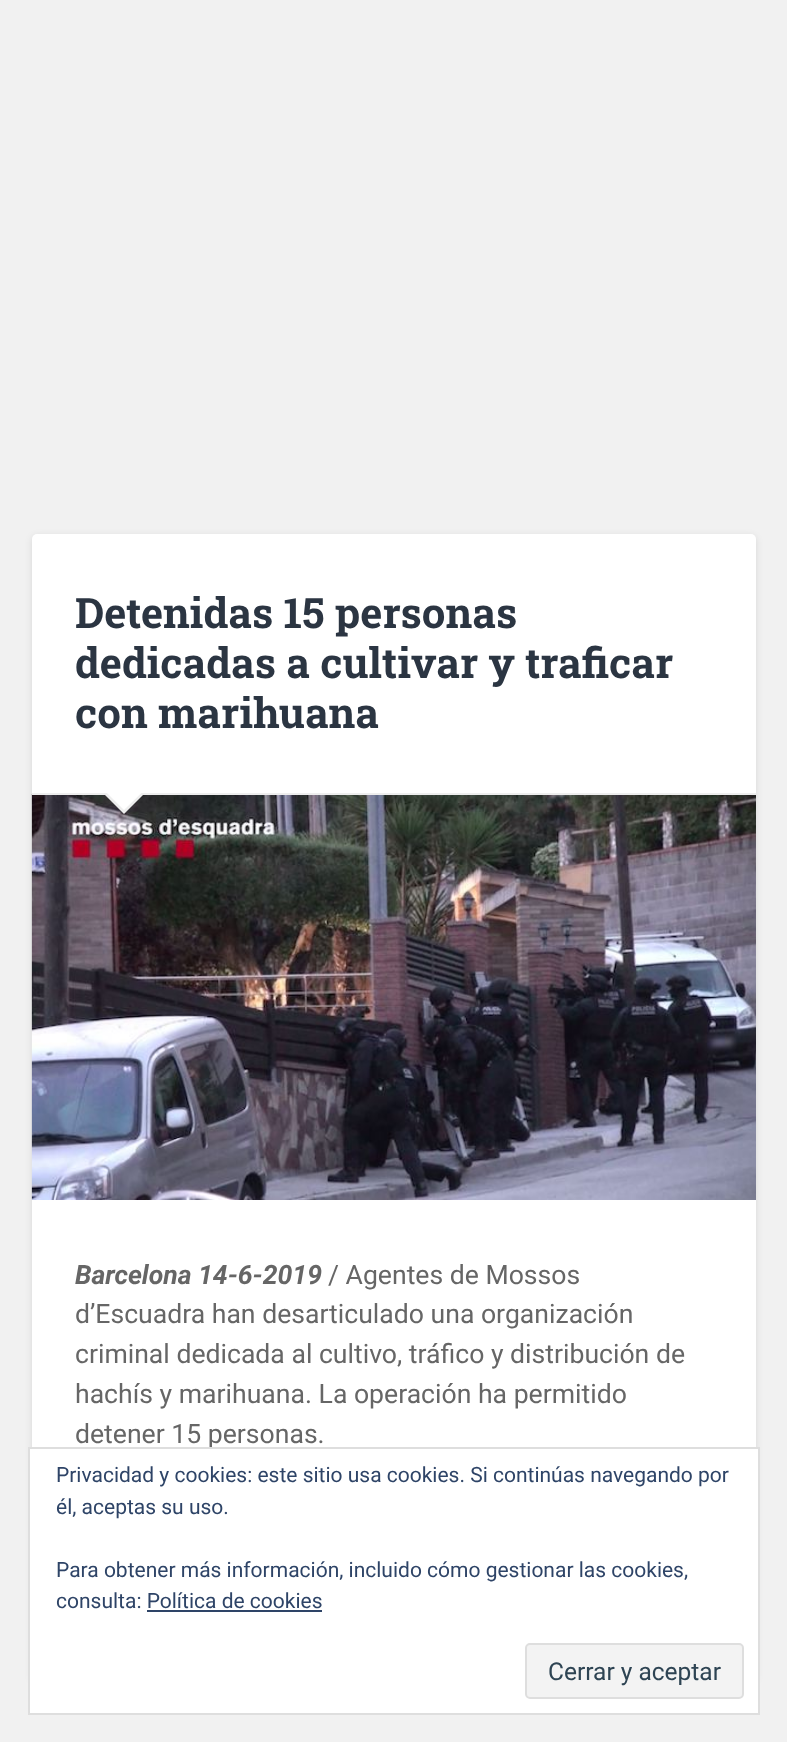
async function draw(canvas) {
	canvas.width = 787;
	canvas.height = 1742;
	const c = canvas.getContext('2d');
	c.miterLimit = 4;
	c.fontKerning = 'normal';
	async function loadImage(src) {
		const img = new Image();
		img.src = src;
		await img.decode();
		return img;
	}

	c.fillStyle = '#f1f1f1';
	c.fillRect(0, 0, 787, 1742);
	c.fillStyle = '#0000001a';
	c.filter = 'blur(3.5px)';
	c.beginPath();
	c.roundRect(32, 536, 724, 1146, 5);
	c.fill();
	c.filter = 'none';
	c.fillStyle = '#fff';
	c.beginPath();
	c.roundRect(32, 534, 724, 1146, 5);
	c.fill();
	c.drawImage(await loadImage('img1.png'), 31, 794, 725, 406);
	c.fillStyle = '#eee';
	c.fillRect(32, 793, 724, 2);
	c.font = 'bold 42px Roboto Slab';
	c.fillStyle = '#2b3542';
	for (const [text, x, y] of [
		['Detenidas 15 personas', 75, 628],
		['dedicadas a cultivar y traficar', 75, 678],
		['con marihuana', 75, 728],
	]) {
		c.fillText(text, x, y);
	}
	c.fillStyle = '#eee';
	c.beginPath();
	c.moveTo(103, 793);
	c.lineTo(145, 793);
	c.lineTo(124, 814);
	c.closePath();
	c.fill();
	c.fillStyle = '#fff';
	c.beginPath();
	c.moveTo(105, 791);
	c.lineTo(143.5, 791);
	c.lineTo(124, 810);
	c.closePath();
	c.fill();
	c.font = 'italic bold 26.6px Roboto';
	c.fillStyle = '#666';
	c.fillText('Barcelona 14-6-2019', 75, 1284);
	c.font = '26.6px Roboto';
	for (const [text, x, y] of [
		['/ Agentes de Mossos', 328, 1284],
		['d’Escuadra han desarticulado una organización', 75, 1323],
		['criminal dedicada al cultivo, tráfico y distribución de', 75, 1363],
		['hachís y marihuana. La operación ha permitido', 75, 1403],
		['detener 15 personas.', 75, 1443],
	]) {
		c.fillText(text, x, y);
	}
	c.fillStyle = '#fff';
	c.beginPath();
	c.rect(29, 1448, 730, 266);
	c.fill();
	c.strokeStyle = '#dedede';
	c.lineWidth = 2;
	c.stroke();
	c.font = '21px Roboto';
	c.fillStyle = '#2e4467';
	for (const [text, x, y] of [
		['Privacidad y cookies: este sitio usa cookies. Si continúas navegando por', 56, 1482],
		['él, aceptas su uso.', 56, 1514],
		['Para obtener más información, incluido cómo gestionar las cookies,', 56, 1577],
		['consulta: Política de cookies', 56, 1608],
	]) {
		c.fillText(text, x, y);
	}
	c.fillRect(147, 1610, 175, 2);
	c.fillStyle = '#f3f3f3';
	c.beginPath();
	c.roundRect(526, 1644, 217, 54, 4);
	c.fill();
	c.stroke();
	c.font = '24.5px Roboto';
	c.fillStyle = '#2e4453';
	c.fillText('Cerrar y aceptar', 548, 1680);
}

draw(document.querySelector('canvas'));
